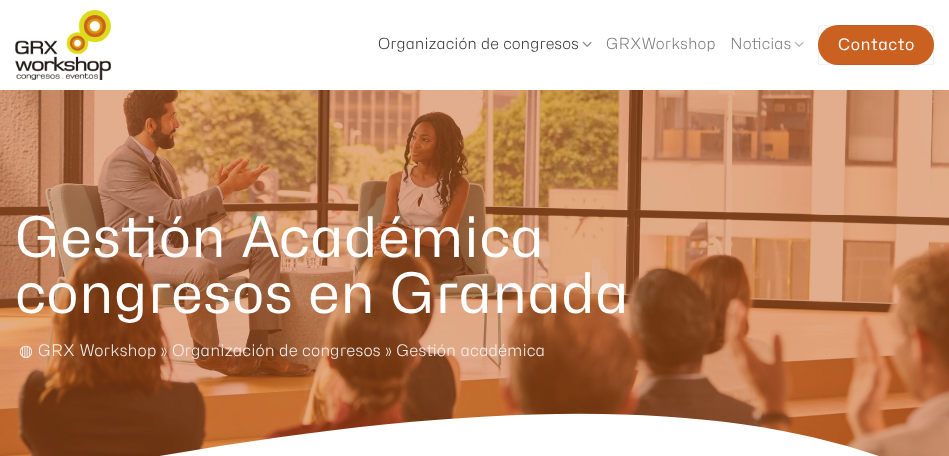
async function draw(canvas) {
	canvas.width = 949;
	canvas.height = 456;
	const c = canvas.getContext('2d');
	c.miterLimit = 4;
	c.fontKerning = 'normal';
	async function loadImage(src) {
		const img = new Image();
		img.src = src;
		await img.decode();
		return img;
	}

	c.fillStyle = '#fff';
	c.fillRect(0, 0, 949, 456);
	c.drawImage(await loadImage('img1.png'), 15, 10, 96, 70);
	c.font = '300 15.4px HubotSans';
	c.fillStyle = '#363636';
	c.fillText('Organización de congresos', 378, 49);
	c.drawImage(await loadImage('img2.png'), 582, 41, 10, 6);
	c.fillStyle = '#7d7d7d';
	c.fillText('GRXWorkshop', 606, 49);
	c.fillText('Noticias', 730, 49);
	c.drawImage(await loadImage('img3.png'), 794, 41, 10, 6);
	c.fillStyle = '#cb6120';
	c.beginPath();
	c.roundRect(818, 25, 116, 40, 20);
	c.fill();
	c.strokeStyle = '#0000000d';
	c.strokeRect(818.5, 25.5, 115, 39);
	c.letterSpacing = '0.5px';
	c.font = '16px HubotSans';
	c.fillStyle = '#fff';
	c.fillText('Contacto', 838, 50);
	c.drawImage(await loadImage('img4.png'), 0, 90, 949, 366);
	c.letterSpacing = '0px';
	c.wordSpacing = '1px';
	c.font = '56px HubotSans';
	c.fillText('Gestión Académica', 15, 257);
	c.wordSpacing = '0px';
	c.fillText('congresos en Granada', 15, 313);
	c.font = '16px DejaVu Sans';
	c.fillStyle = '#f1f1f1';
	c.fillText('◍', 19, 356);
	c.font = '300 16px HubotSans';
	c.fillText('GRX Workshop » Organización de congresos » Gestión académica', 38, 356);
	c.fillStyle = '#fff';
	c.beginPath();
	c.moveTo(-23, 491);
	c.bezierCurveTo(469, 388, 764, 388, 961, 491);
	c.closePath();
	c.fill();
}

draw(document.querySelector('canvas'));
